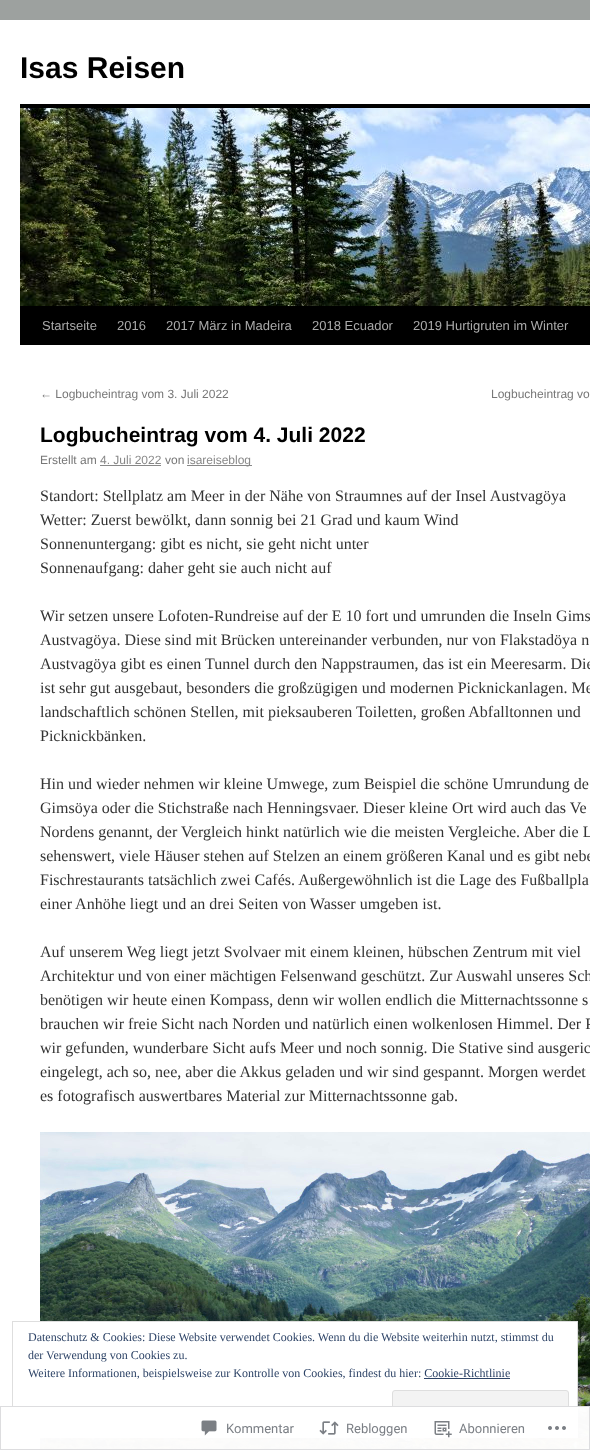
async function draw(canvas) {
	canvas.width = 590;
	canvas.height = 1450;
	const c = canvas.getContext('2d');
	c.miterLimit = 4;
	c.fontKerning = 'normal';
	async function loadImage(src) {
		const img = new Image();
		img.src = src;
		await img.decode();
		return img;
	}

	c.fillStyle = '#9da19f';
	c.fillRect(0, 0, 590, 1450);
	c.fillStyle = '#fff';
	c.fillRect(0, 20, 590, 1430);
	c.font = 'bold 30px Liberation Sans';
	c.fillStyle = '#000';
	c.fillText('Isas Reisen', 20, 78);
	c.fillRect(20, 104, 570, 4);
	c.fillRect(20, 306, 570, 39);
	c.drawImage(await loadImage('img1.png'), 20, 108, 570, 198);
	c.font = '13px Liberation Sans';
	c.fillStyle = '#aaa';
	for (const [text, x, y] of [
		['Startseite', 42, 330],
		['2016', 117, 330],
		['2017 März in Madeira', 166, 330],
		['2018 Ecuador', 312, 330],
		['2019 Hurtigruten im Winter', 413, 330],
	]) {
		c.fillText(text, x, y);
	}
	c.font = '12px Liberation Sans';
	c.fillStyle = '#777';
	c.fillText('← Logbucheintrag vom 3. Juli 2022', 40, 398);
	c.fillText('Logbucheintrag vo', 491, 398);
	c.font = 'bold 21px Liberation Sans';
	c.fillStyle = '#000';
	c.fillText('Logbucheintrag vom 4. Juli 2022', 40, 442);
	c.font = '12px Liberation Sans';
	c.fillStyle = '#777';
	c.fillText('Erstellt am', 40, 464);
	c.fillStyle = '#888';
	c.fillText('4. Juli 2022', 100, 464);
	c.fillRect(100, 465, 61, 1);
	c.fillStyle = '#777';
	c.fillText('von', 165, 464);
	c.fillStyle = '#888';
	c.fillRect(187, 465, 65, 1);
	c.fillText('isareiseblog', 187, 464);
	c.font = '16px Liberation Serif';
	c.fillStyle = '#333';
	for (const [text, x, y] of [
		['Standort: Stellplatz am Meer in der Nähe von Straumnes auf der Insel Austvagöya', 40, 501],
		['Wetter: Zuerst bewölkt, dann sonnig bei 21 Grad und kaum Wind', 40, 525],
		['Sonnenuntergang: gibt es nicht, sie geht nicht unter', 40, 549],
		['Sonnenaufgang: daher geht sie auch nicht auf', 40, 573],
		['Wir setzen unsere Lofoten-Rundreise auf der E 10 fort und umrunden die Inseln Gims', 40, 621],
		['Austvagöya. Diese sind mit Brücken untereinander verbunden, nur von Flakstadöya n', 40, 645],
		['Austvagöya gibt es einen Tunnel durch den Nappstraumen, das ist ein Meeresarm. Die', 40, 669],
		['ist sehr gut ausgebaut, besonders die großzügigen und modernen Picknickanlagen. Me', 40, 693],
		['landschaftlich schönen Stellen, mit pieksauberen Toiletten, großen Abfalltonnen und', 40, 717],
		['Picknickbänken.', 40, 741],
		['Hin und wieder nehmen wir kleine Umwege, zum Beispiel die schöne Umrundung de', 40, 789],
		['Gimsöya oder die Stichstraße nach Henningsvaer. Dieser kleine Ort wird auch das Ve', 40, 813],
		['Nordens genannt, der Vergleich hinkt natürlich wie die meisten Vergleiche. Aber die L', 40, 837],
		['sehenswert, viele Häuser stehen auf Stelzen an einem größeren Kanal und es gibt nebe', 40, 861],
		['Fischrestaurants tatsächlich zwei Cafés. Außergewöhnlich ist die Lage des Fußballpla', 40, 885],
		['einer Anhöhe liegt und an drei Seiten von Wasser umgeben ist.', 40, 909],
		['Auf unserem Weg liegt jetzt Svolvaer mit einem kleinen, hübschen Zentrum mit viel', 40, 957],
		['Architektur und von einer mächtigen Felsenwand geschützt. Zur Auswahl unseres Sch', 40, 981],
		['benötigen wir heute einen Kompass, denn wir wollen endlich die Mitternachtssonne s', 40, 1005],
		['brauchen wir freie Sicht nach Norden und natürlich einen wolkenlosen Himmel. Der P', 40, 1029],
		['wir gefunden, wunderbare Sicht aufs Meer und noch sonnig. Die Stative sind ausgeric', 40, 1053],
		['eingelegt, ach so, nee, aber die Akkus geladen und wir sind gespannt. Morgen werdet', 40, 1077],
		['es fotografisch auswertbares Material zur Mitternachtssonne gab.', 40, 1101],
	]) {
		c.fillText(text, x, y);
	}
	c.drawImage(await loadImage('img2.png'), 40, 1132, 550, 318);
	c.fillStyle = '#fff';
	c.fillRect(40, 1322, 537, 115);
	c.strokeStyle = '#dedede';
	c.strokeRect(12.5, 1321.5, 565, 116);
	c.font = '12px Liberation Serif';
	c.fillStyle = '#2e4467';
	for (const [text, x, y] of [
		['Datenschutz & Cookies: Diese Website verwendet Cookies. Wenn du die Website weiterhin nutzt, stimmst du', 28, 1341],
		['der Verwendung von Cookies zu.', 28, 1359],
		['Weitere Informationen, beispielsweise zur Kontrolle von Cookies, findest du hier: Cookie-Richtlinie', 28, 1377],
	]) {
		c.fillText(text, x, y);
	}
	c.fillRect(424, 1378, 86, 1);
	c.fillStyle = '#f3f3f3';
	c.beginPath();
	c.roundRect(392.5, 1390.5, 176, 38, 2.5);
	c.fill();
	c.stroke();
	c.fillStyle = '#fffffffa';
	c.fillRect(12, 1406, 578, 44);
	c.strokeStyle = '#dcdcdefa';
	c.strokeRect(0.5, 1406.5, 589, 43);
	c.drawImage(await loadImage('img3.png'), 201, 1420, 16, 16);
	c.font = '13px Roboto';
	c.fillStyle = '#7b7f85';
	c.fillText('Kommentar', 226, 1433);
	c.drawImage(await loadImage('img4.png'), 319, 1421, 20, 14);
	c.fillText('Rebloggen', 346, 1433);
	c.drawImage(await loadImage('img5.png'), 434, 1421, 18, 17);
	c.fillText('Abonnieren', 459, 1433);
	c.drawImage(await loadImage('img6.png'), 548, 1426, 18, 4);
}

draw(document.querySelector('canvas'));
